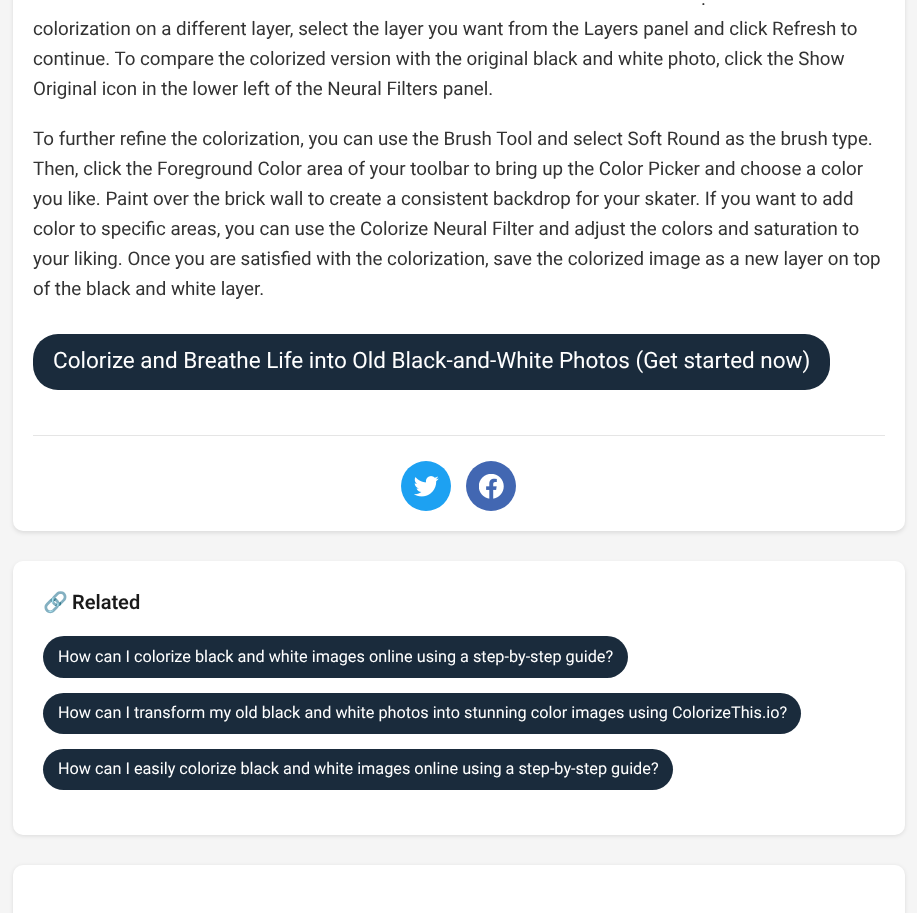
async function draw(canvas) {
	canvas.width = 917;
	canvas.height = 913;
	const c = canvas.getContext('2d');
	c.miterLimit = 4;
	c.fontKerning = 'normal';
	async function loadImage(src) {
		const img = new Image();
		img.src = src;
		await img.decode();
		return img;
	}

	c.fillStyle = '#f5f5f5';
	c.fillRect(0, 0, 917, 913);
	c.fillStyle = '#0000001a';
	c.filter = 'blur(2px)';
	c.beginPath();
	c.roundRect(13, -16, 892, 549, 10);
	c.fill();
	c.filter = 'none';
	c.fillStyle = '#fff';
	c.beginPath();
	c.roundRect(13, -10, 892, 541, 10);
	c.fill();
	c.font = '18.75px Roboto';
	c.fillStyle = '#333';
	for (const [text, x, y] of [
		['.', 701, 5],
		['colorization on a different layer, select the layer you want from the Layers panel and click Refresh to', 33, 35],
		['continue. To compare the colorized version with the original black and white photo, click the Show', 33, 65],
		['Original icon in the lower left of the Neural Filters panel.', 33, 95],
		['To further refine the colorization, you can use the Brush Tool and select Soft Round as the brush type.', 33, 145],
		['Then, click the Foreground Color area of your toolbar to bring up the Color Picker and choose a color', 33, 175],
		['you like. Paint over the brick wall to create a consistent backdrop for your skater. If you want to add', 33, 205],
		['color to specific areas, you can use the Colorize Neural Filter and adjust the colors and saturation to', 33, 235],
		['your liking. Once you are satisfied with the colorization, save the colorized image as a new layer on top', 33, 265],
		['of the black and white layer.', 33, 295],
	]) {
		c.fillText(text, x, y);
	}
	c.fillStyle = '#1a2b3c';
	c.beginPath();
	c.roundRect(33, 334, 797, 56, 25);
	c.fill();
	c.font = '22.5px Roboto';
	c.fillStyle = '#fff';
	c.fillText('Colorize and Breathe Life into Old Black-and-White Photos (Get started now)', 53, 368);
	c.fillStyle = '#e5e5e5';
	c.fillRect(33, 435, 852, 1);
	c.fillStyle = '#1da1f2';
	c.beginPath();
	c.arc(426, 486, 25, 0, 2 * Math.PI);
	c.fill();
	c.drawImage(await loadImage('img1.png'), 414, 476, 25, 21);
	c.fillStyle = '#4267b2';
	c.beginPath();
	c.arc(491, 486, 25, 0, 2 * Math.PI);
	c.fill();
	c.drawImage(await loadImage('img2.png'), 479, 474, 25, 25);
	c.fillStyle = '#0000001a';
	c.filter = 'blur(2px)';
	c.beginPath();
	c.roundRect(13, 563, 892, 273, 10);
	c.fill();
	c.filter = 'none';
	c.fillStyle = '#fff';
	c.beginPath();
	c.roundRect(13, 561, 892, 274, 10);
	c.fill();
	c.font = 'bold 20px Noto Color Emoji';
	c.fillStyle = '#1a1a1a';
	c.fillText('🔗', 43, 609);
	c.font = '600 20px Roboto';
	c.fillText('Related', 72, 609);
	c.fillStyle = '#1a2b3c';
	c.beginPath();
	c.roundRect(43, 636, 585, 42, 21);
	c.fill();
	c.font = '16.25px Roboto';
	c.fillStyle = '#fff';
	c.fillText('How can I colorize black and white images online using a step-by-step guide?', 58, 662);
	c.fillStyle = '#1a2b3c';
	c.beginPath();
	c.roundRect(43, 693, 758, 41, 20.5);
	c.fill();
	c.fillStyle = '#fff';
	c.fillText('How can I transform my old black and white photos into stunning color images using ColorizeThis.io?', 58, 718);
	c.fillStyle = '#1a2b3c';
	c.beginPath();
	c.roundRect(43, 749, 630, 41, 20.5);
	c.fill();
	c.fillStyle = '#fff';
	c.fillText('How can I easily colorize black and white images online using a step-by-step guide?', 58, 774);
	c.fillStyle = '#0000001a';
	c.filter = 'blur(2px)';
	c.beginPath();
	c.roundRect(13, 866, 892, 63, 10);
	c.fill();
	c.filter = 'none';
	c.fillStyle = '#fff';
	c.beginPath();
	c.roundRect(13, 865, 892, 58, 10);
	c.fill();
}

draw(document.querySelector('canvas'));
